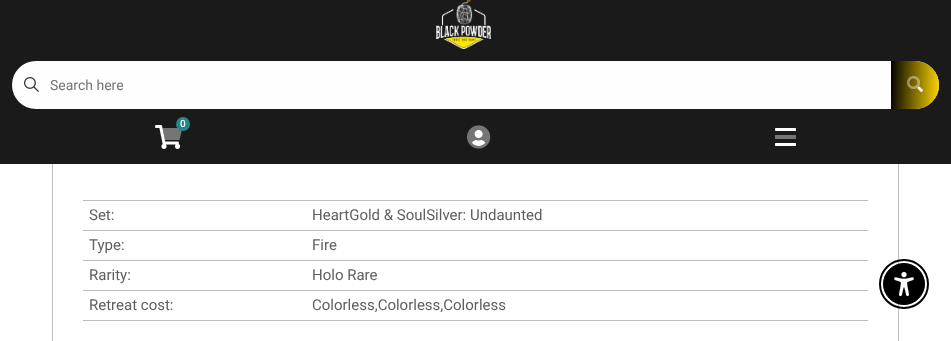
async function draw(canvas) {
	canvas.width = 951;
	canvas.height = 341;
	const c = canvas.getContext('2d');
	c.miterLimit = 4;
	c.fontKerning = 'normal';
	async function loadImage(src) {
		const img = new Image();
		img.src = src;
		await img.decode();
		return img;
	}
	let gradient;

	c.fillStyle = '#fff';
	c.fillRect(0, 0, 951, 341);
	c.strokeStyle = '#bdbdbd';
	c.strokeRect(52.5, 79.5, 846, 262);
	c.fillStyle = '#1a1a1a';
	c.fillRect(0, 0, 951, 164);
	c.drawImage(await loadImage('img1.png'), 436, 0, 55, 49);
	c.fillStyle = '#fefefe';
	c.beginPath();
	c.roundRect(12, 61, 927, 48, 24);
	c.fill();
	c.drawImage(await loadImage('img2.png'), 24, 77, 15, 15);
	c.font = '14px Roboto';
	c.fillStyle = '#757575';
	c.fillText('Search here', 50, 90);
	gradient = c.createLinearGradient(940, 86, 890, 84);
	gradient.addColorStop(0, '#ffd700');
	gradient.addColorStop(1, '#000');
	c.fillStyle = gradient;
	c.beginPath();
	c.roundRect(891, 61, 48, 48, [0, 24, 24, 0]);
	c.fill();
	c.drawImage(await loadImage('img4.png'), 917, 86, 6, 6);
	c.drawImage(await loadImage('img3.png'), 907, 76, 13, 13);
	c.drawImage(await loadImage('img5.png'), 155, 125, 26, 24);
	c.drawImage(await loadImage('img6.png'), 162, 128, 20, 12);
	c.fillStyle = '#25878c';
	c.beginPath();
	c.arc(183, 124, 7, 0, 2 * Math.PI);
	c.fill();
	c.font = '500 10px Roboto';
	c.fillStyle = '#fff';
	c.fillText('0', 180, 127);
	c.drawImage(await loadImage('img8.png'), 471, 129, 15, 17);
	c.drawImage(await loadImage('img7.png'), 467, 125, 24, 24);
	c.drawImage(await loadImage('img9.png'), 775, 128, 21, 18);
	c.fillStyle = '#757575';
	c.fillRect(775, 135, 21, 4);
	c.fillStyle = '#bdbdbd';
	c.fillRect(83, 200, 785, 1);
	c.font = '15px Roboto';
	c.fillStyle = '#5f5f5f';
	c.fillText('Set:', 89, 220);
	c.fillText('HeartGold & SoulSilver: Undaunted', 312, 220);
	c.fillStyle = '#bdbdbd';
	c.fillRect(83, 230, 785, 1);
	c.fillStyle = '#5f5f5f';
	c.fillText('Type:', 89, 250);
	c.fillText('Fire', 312, 250);
	c.fillStyle = '#bdbdbd';
	c.fillRect(83, 260, 785, 1);
	c.fillStyle = '#5f5f5f';
	c.fillText('Rarity:', 89, 280);
	c.fillText('Holo Rare', 312, 280);
	c.fillStyle = '#bdbdbd';
	c.fillRect(83, 290, 785, 1);
	c.fillRect(83, 320, 785, 1);
	c.fillStyle = '#5f5f5f';
	c.fillText('Retreat cost:', 89, 310);
	c.fillText('Colorless,Colorless,Colorless', 312, 310);
	c.beginPath();
	c.arc(904, 284, 24, 0, 2 * Math.PI);
	c.strokeStyle = '#000';
	c.lineWidth = 2;
	c.stroke();
	c.fillStyle = '#000';
	c.beginPath();
	c.arc(904, 284, 20.5, 0, 2 * Math.PI);
	c.fill();
	c.lineWidth = 1;
	c.stroke();
	c.drawImage(await loadImage('img10.png'), 894, 272, 20, 24);
}

draw(document.querySelector('canvas'));
